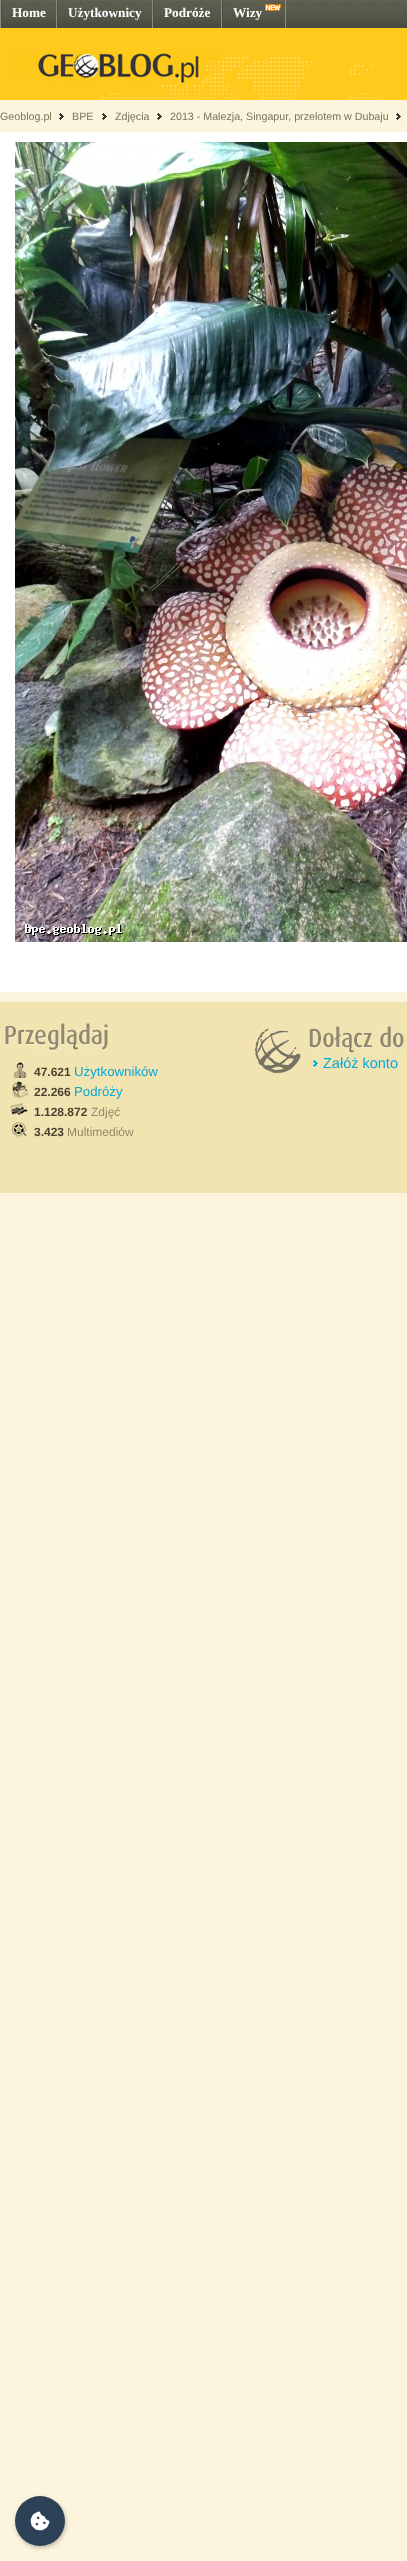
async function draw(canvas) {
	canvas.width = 407;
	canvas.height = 2561;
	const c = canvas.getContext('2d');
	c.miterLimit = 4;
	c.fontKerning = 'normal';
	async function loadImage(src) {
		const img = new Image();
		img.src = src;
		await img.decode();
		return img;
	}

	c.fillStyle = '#fcf4dd';
	c.fillRect(0, 0, 407, 2561);
	c.drawImage(await loadImage('img1.png'), 2, 0, 405, 28);
	for (const [x, y, w, h, color] of [
		[0, 0, 1, 28, '#8c8d83'],
		[56, 0, 1, 28, '#8c8d83'],
		[1, 0, 1, 28, '#494a41'],
	]) {
		c.fillStyle = color;
		c.fillRect(x, y, w, h);
	}
	c.font = 'bold 13.25px Liberation Serif';
	c.fillStyle = '#fff';
	c.fillText('Home', 12, 17);
	c.fillStyle = '#8c8d83';
	c.fillRect(152, 0, 1, 28);
	c.fillStyle = '#494a41';
	c.fillRect(57, 0, 1, 28);
	c.fillStyle = '#fff';
	c.fillText('Użytkownicy', 68, 17);
	c.fillStyle = '#8c8d83';
	c.fillRect(221, 0, 1, 28);
	c.fillStyle = '#494a41';
	c.fillRect(153, 0, 1, 28);
	c.fillStyle = '#fff';
	c.fillText('Podróże', 164, 17);
	c.fillStyle = '#8c8d83';
	c.fillRect(285, 0, 1, 28);
	c.fillStyle = '#494a41';
	c.fillRect(222, 0, 1, 28);
	c.fillStyle = '#fff';
	c.fillText('Wizy', 233, 17);
	c.drawImage(await loadImage('img2.png'), 265, 4, 16, 7);
	c.fillStyle = '#ffca1c';
	c.fillRect(0, 28, 407, 72);
	c.drawImage(await loadImage('img3.png'), 0, 52, 380, 48);
	c.font = '10.7px Liberation Sans';
	c.fillStyle = '#76765c';
	c.fillText('Geoblog.pl', 0, 120);
	c.drawImage(await loadImage('img4.png'), 59, 113, 5, 7);
	c.fillText('BPE', 72, 120);
	c.drawImage(await loadImage('img4.png'), 102, 113, 5, 7);
	c.fillText('Zdjęcia', 115, 120);
	c.drawImage(await loadImage('img4.png'), 157, 113, 5, 7);
	c.fillText('2013 - Malezja, Singapur, przelotem w Dubaju', 170, 120);
	c.drawImage(await loadImage('img4.png'), 396, 113, 5, 7);
	c.fillStyle = '#fff';
	c.fillRect(0, 132, 407, 860);
	c.drawImage(await loadImage('img5.png'), 15, 142, 392, 800);
	c.fillStyle = '#f2e4b1';
	c.fillRect(0, 1002, 407, 191);
	c.drawImage(await loadImage('img6.png'), 252, 1024, 52, 52);
	c.drawImage(await loadImage('img7.png'), 305, 1024, 102, 31);
	c.drawImage(await loadImage('img8.png'), 310, 1058, 9, 12);
	c.font = '14.5px Liberation Sans';
	c.fillStyle = '#0ba7d8';
	c.fillText('Załóż konto', 323, 1068);
	c.drawImage(await loadImage('img9.png'), 4, 1022, 104, 32);
	c.drawImage(await loadImage('img10.png'), 11, 1062, 16, 16);
	c.font = 'bold 12px Liberation Sans';
	c.fillStyle = '#4b4233';
	c.fillText('47.621', 34, 1076);
	c.font = '13.25px Liberation Sans';
	c.fillStyle = '#0ba7d8';
	c.fillText('Użytkowników', 74, 1076);
	c.drawImage(await loadImage('img11.png'), 11, 1081, 18, 17);
	c.font = 'bold 12px Liberation Sans';
	c.fillStyle = '#4b4233';
	c.fillText('22.266', 34, 1096);
	c.font = '13.25px Liberation Sans';
	c.fillStyle = '#0ba7d8';
	c.fillText('Podróży', 74, 1096);
	c.drawImage(await loadImage('img12.png'), 10, 1102, 19, 16);
	c.font = 'bold 12px Liberation Sans';
	c.fillStyle = '#4b4233';
	c.fillText('1.128.872', 34, 1116);
	c.font = '12px Liberation Sans';
	c.fillStyle = '#92886a';
	c.fillText('Zdjęć', 91, 1116);
	c.drawImage(await loadImage('img13.png'), 11, 1121, 16, 17);
	c.font = 'bold 12px Liberation Sans';
	c.fillStyle = '#4b4233';
	c.fillText('3.423', 34, 1136);
	c.font = '12px Liberation Sans';
	c.fillStyle = '#92886a';
	c.fillText('Multimediów', 67, 1136);
	c.fillStyle = '#00000040';
	c.filter = 'blur(2px)';
	c.beginPath();
	c.roundRect(16, 2498, 50, 50, 25);
	c.fill();
	c.filter = 'none';
	c.fillStyle = '#2d4156';
	c.beginPath();
	c.arc(40, 2521, 25, 0, 2 * Math.PI);
	c.fill();
	c.drawImage(await loadImage('img14.png'), 30, 2511, 20, 20);
}

draw(document.querySelector('canvas'));
